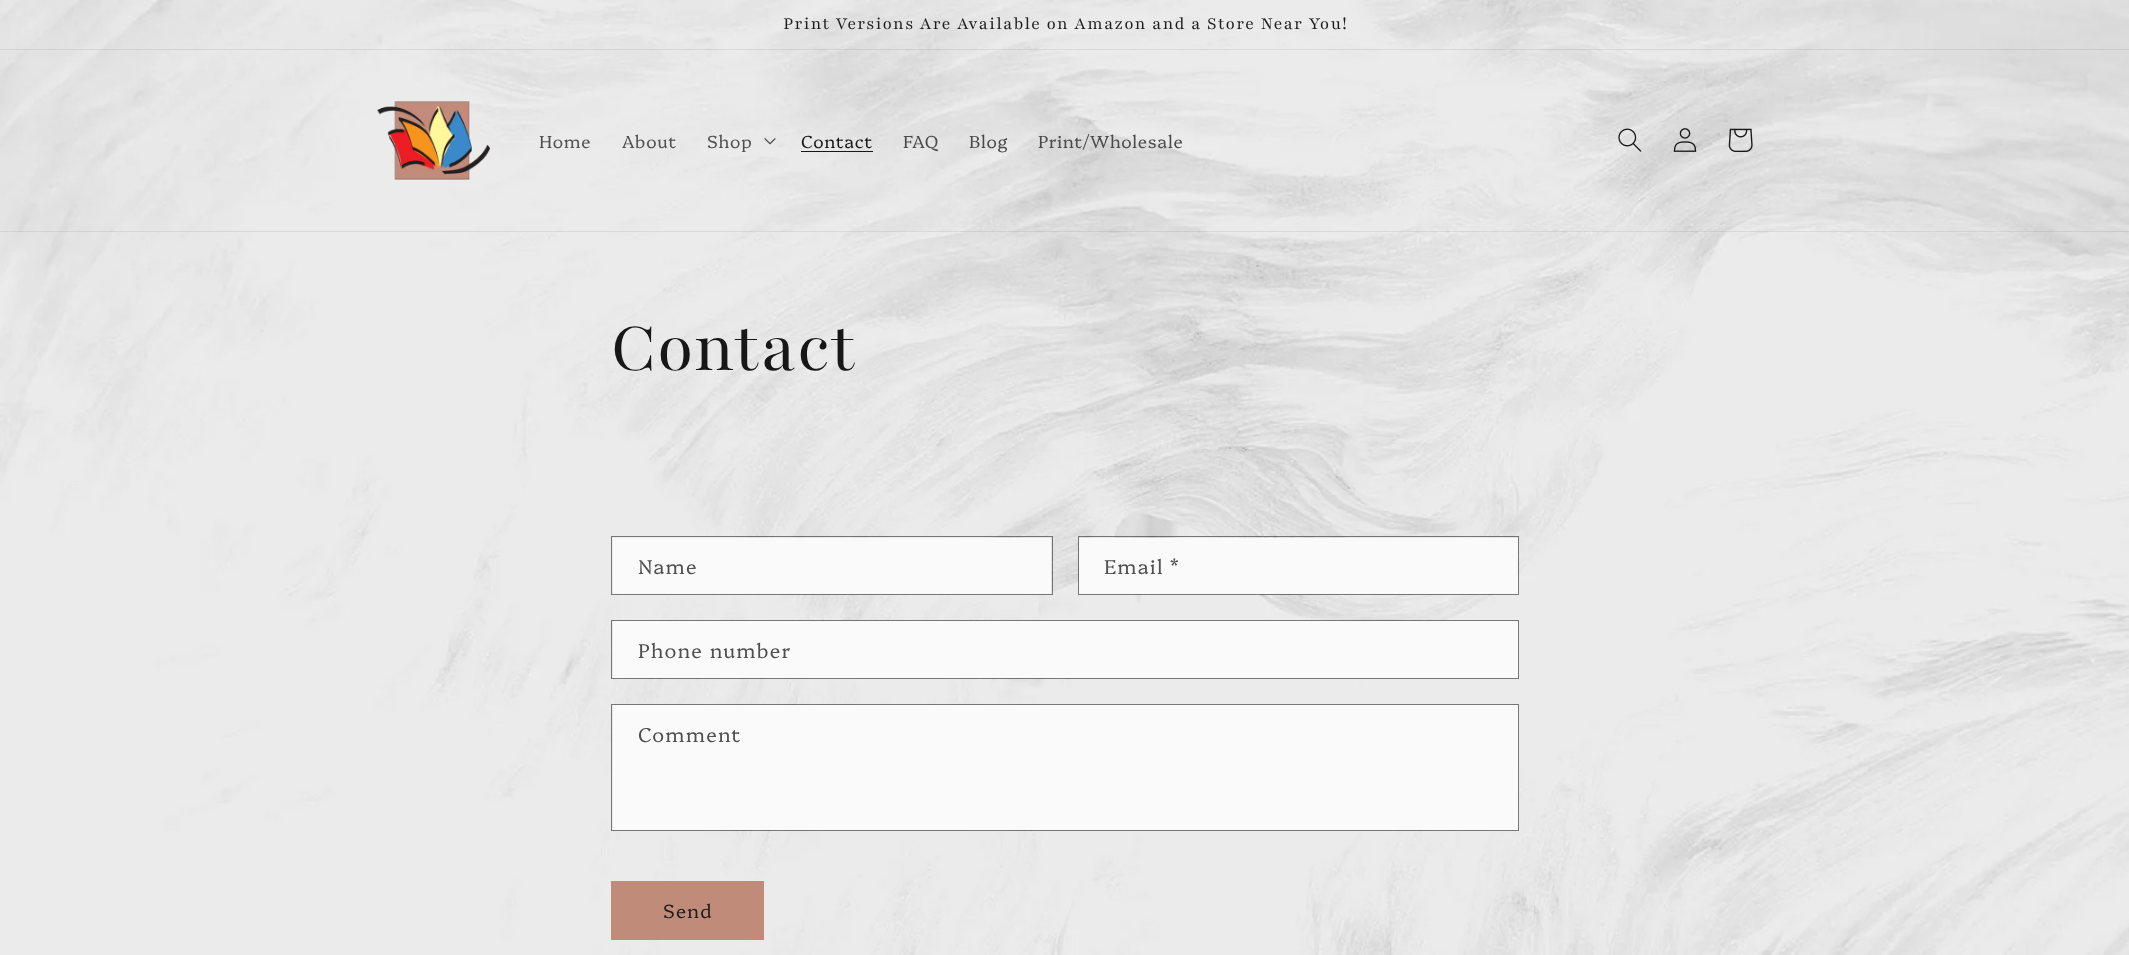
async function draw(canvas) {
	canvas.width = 2129;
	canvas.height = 955;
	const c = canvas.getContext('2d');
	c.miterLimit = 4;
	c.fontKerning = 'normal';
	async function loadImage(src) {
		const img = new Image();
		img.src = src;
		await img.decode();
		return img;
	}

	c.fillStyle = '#fff';
	c.fillRect(0, 0, 2129, 955);
	c.drawImage(await loadImage('img1.png'), 0, 0, 2129, 955);
	c.fillStyle = '#201d1d14';
	c.fillRect(0, 49, 2129, 1);
	c.letterSpacing = '1.25px';
	c.font = '18.7px "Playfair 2"';
	c.fillStyle = '#201d1d';
	c.fillText('Print Versions Are Available on Amazon and a Store Near You!', 783, 29);
	c.drawImage(await loadImage('img2.png'), 958, 232, 1010, 1);
	c.fillStyle = '#17171814';
	c.fillRect(0, 231, 2129, 1);
	c.drawImage(await loadImage('img3.png'), 377, 101, 113, 79);
	c.letterSpacing = '0.75px';
	c.font = '300 17.5px Platypi';
	c.fillStyle = '#505051';
	for (const [text, x, y] of [
		['Home', 539, 148],
		['About', 622, 148],
		['Shop', 707, 148],
	]) {
		c.fillText(text, x, y);
	}
	c.drawImage(await loadImage('img4.png'), 764, 138, 12, 7);
	c.fillStyle = '#171718';
	c.fillText('Contact', 801, 148);
	c.fillRect(801, 151, 72, 1);
	c.fillStyle = '#4a4a4b';
	for (const [text, x, y] of [
		['FAQ', 903, 148],
		['Blog', 969, 148],
		['Print/Wholesale', 1038, 148],
	]) {
		c.fillText(text, x, y);
	}
	c.drawImage(await loadImage('img5.png'), 1618, 128, 24, 24);
	c.drawImage(await loadImage('img6.png'), 1673, 128, 24, 24);
	c.drawImage(await loadImage('img7.png'), 1728, 128, 25, 24);
	c.letterSpacing = '1px';
	c.font = '75px Playfair';
	c.fillStyle = '#171718';
	c.fillText('Contact', 611, 370);
	c.drawImage(await loadImage('img8.png'), 1145, 491, 4, 1);
	c.fillStyle = '#fafafa';
	c.fillRect(613, 538, 438, 56);
	c.strokeStyle = '#1717188c';
	c.strokeRect(611.5, 536.5, 441, 58);
	c.letterSpacing = '1.25px';
	c.font = '300 20px Platypi';
	c.fillStyle = '#505051';
	c.fillText('Name', 638, 574);
	c.fillStyle = '#fafafa';
	c.fillRect(1079, 538, 439, 56);
	c.strokeRect(1078.5, 536.5, 440, 58);
	c.fillStyle = '#505051';
	c.fillText('Email *', 1104, 574);
	c.fillStyle = '#fafafa';
	c.fillRect(613, 621, 905, 57);
	c.strokeRect(611.5, 620.5, 907, 58);
	c.fillStyle = '#505051';
	c.fillText('Phone number', 638, 658);
	c.fillStyle = '#fafafa';
	c.fillRect(613, 705, 905, 125);
	c.strokeRect(611.5, 704.5, 907, 126);
	c.fillStyle = '#505051';
	c.fillText('Comment', 638, 742);
	c.fillStyle = '#c08b79';
	c.fillRect(611, 881, 153, 59);
	c.font = '300 19px Platypi';
	c.fillStyle = '#201d1d';
	c.fillText('Send', 663, 918);
}

draw(document.querySelector('canvas'));
